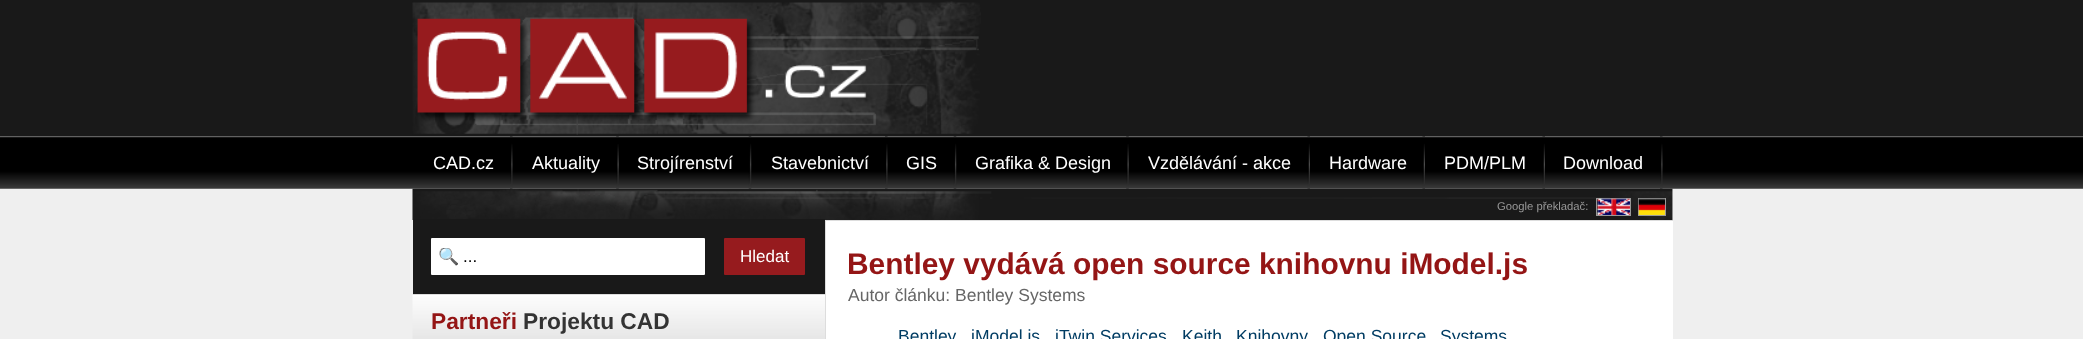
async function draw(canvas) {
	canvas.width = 2083;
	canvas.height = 339;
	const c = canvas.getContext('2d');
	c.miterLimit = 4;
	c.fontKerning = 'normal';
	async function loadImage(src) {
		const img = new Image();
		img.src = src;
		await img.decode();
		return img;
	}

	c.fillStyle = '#efefef';
	c.fillRect(0, 0, 2083, 339);
	c.fillStyle = '#191919';
	c.fillRect(0, 0, 2083, 136);
	c.drawImage(await loadImage('img1.png'), 412, 1, 569, 134);
	c.drawImage(await loadImage('img2.png'), 0, 136, 2083, 53);
	c.drawImage(await loadImage('img3.png'), 510, 136, 3, 53);
	c.font = '18px Liberation Sans';
	c.fillStyle = '#fff';
	c.fillText('CAD.cz', 433, 169);
	c.drawImage(await loadImage('img4.png'), 616, 136, 3, 53);
	c.fillText('Aktuality', 532, 169);
	c.drawImage(await loadImage('img5.png'), 748, 136, 4, 53);
	c.fillText('Strojírenství', 637, 169);
	c.drawImage(await loadImage('img3.png'), 885, 136, 3, 53);
	c.fillText('Stavebnictví', 771, 169);
	c.drawImage(await loadImage('img5.png'), 953, 136, 4, 53);
	c.fillText('GIS', 906, 169);
	c.drawImage(await loadImage('img4.png'), 1126, 136, 3, 53);
	c.fillText('Grafika & Design', 975, 169);
	c.drawImage(await loadImage('img6.png'), 1307, 136, 3, 53);
	c.fillText('Vzdělávání - akce', 1148, 169);
	c.drawImage(await loadImage('img6.png'), 1422, 136, 3, 53);
	c.fillText('Hardware', 1329, 169);
	c.drawImage(await loadImage('img6.png'), 1542, 136, 3, 53);
	c.fillText('PDM/PLM', 1444, 169);
	c.drawImage(await loadImage('img3.png'), 1660, 136, 3, 53);
	c.fillText('Download', 1563, 169);
	c.fillRect(826, 189, 847, 150);
	c.drawImage(await loadImage('img7.png'), 412, 188, 1261, 32);
	c.font = '11.25px Liberation Sans';
	c.fillStyle = '#999';
	c.fillText('Google překladač:', 1497, 210);
	c.strokeStyle = '#999';
	c.strokeRect(1596.5, 198.5, 34, 17);
	c.drawImage(await loadImage('img8.png'), 1597, 198, 33, 17);
	c.strokeRect(1638.5, 198.5, 27, 17);
	c.drawImage(await loadImage('img9.png'), 1638, 198, 27, 17);
	c.fillStyle = '#ddd';
	c.fillRect(825, 220, 1, 119);
	c.fillStyle = '#191919';
	c.fillRect(413, 219, 412, 75);
	c.fillStyle = '#fff';
	c.beginPath();
	c.roundRect(431, 238, 274, 37, 1);
	c.fill();
	c.save();
	c.beginPath();
	c.rect(434, 248, 269, 18);
	c.clip();
	c.font = '17px Noto Color Emoji';
	c.fillStyle = '#000';
	c.fillText('🔍', 438, 262);
	c.restore();
	c.font = '17px Liberation Sans';
	c.fillStyle = '#000';
	c.fillText('...', 463, 262);
	c.fillStyle = '#961b1e';
	c.beginPath();
	c.roundRect(724, 238, 81, 37, 1);
	c.fill();
	c.fillStyle = '#fff';
	c.fillText('Hledat', 740, 262);
	c.fillStyle = '#ddd';
	c.fillRect(413, 294, 412, 1);
	c.drawImage(await loadImage('img10.png'), 412, 295, 413, 44);
	c.font = 'bold 22.75px Liberation Sans';
	c.fillStyle = '#941515';
	c.fillText('Partneři', 431, 329);
	c.fillStyle = '#333';
	c.fillText('Projektu CAD', 523, 329);
	c.fillStyle = '#ddd';
	c.fillRect(826, 220, 847, 1);
	c.font = 'bold 29.9px Liberation Sans';
	c.fillStyle = '#941515';
	c.fillText('Bentley vydává open source knihovnu iModel.js', 847, 274);
	c.font = '17.5px Liberation Sans';
	c.fillStyle = '#666';
	c.fillText('Autor článku: Bentley Systems', 848, 301);
	c.fillStyle = '#003c63';
	for (const [text, x, y] of [
		['Bentley', 898, 342],
		['iModel.js', 971, 342],
		['iTwin Services', 1055, 342],
		['Keith', 1182, 342],
		['Knihovny', 1236, 342],
		['Open Source', 1323, 342],
		['Systems', 1440, 342],
	]) {
		c.fillText(text, x, y);
	}
}

draw(document.querySelector('canvas'));
